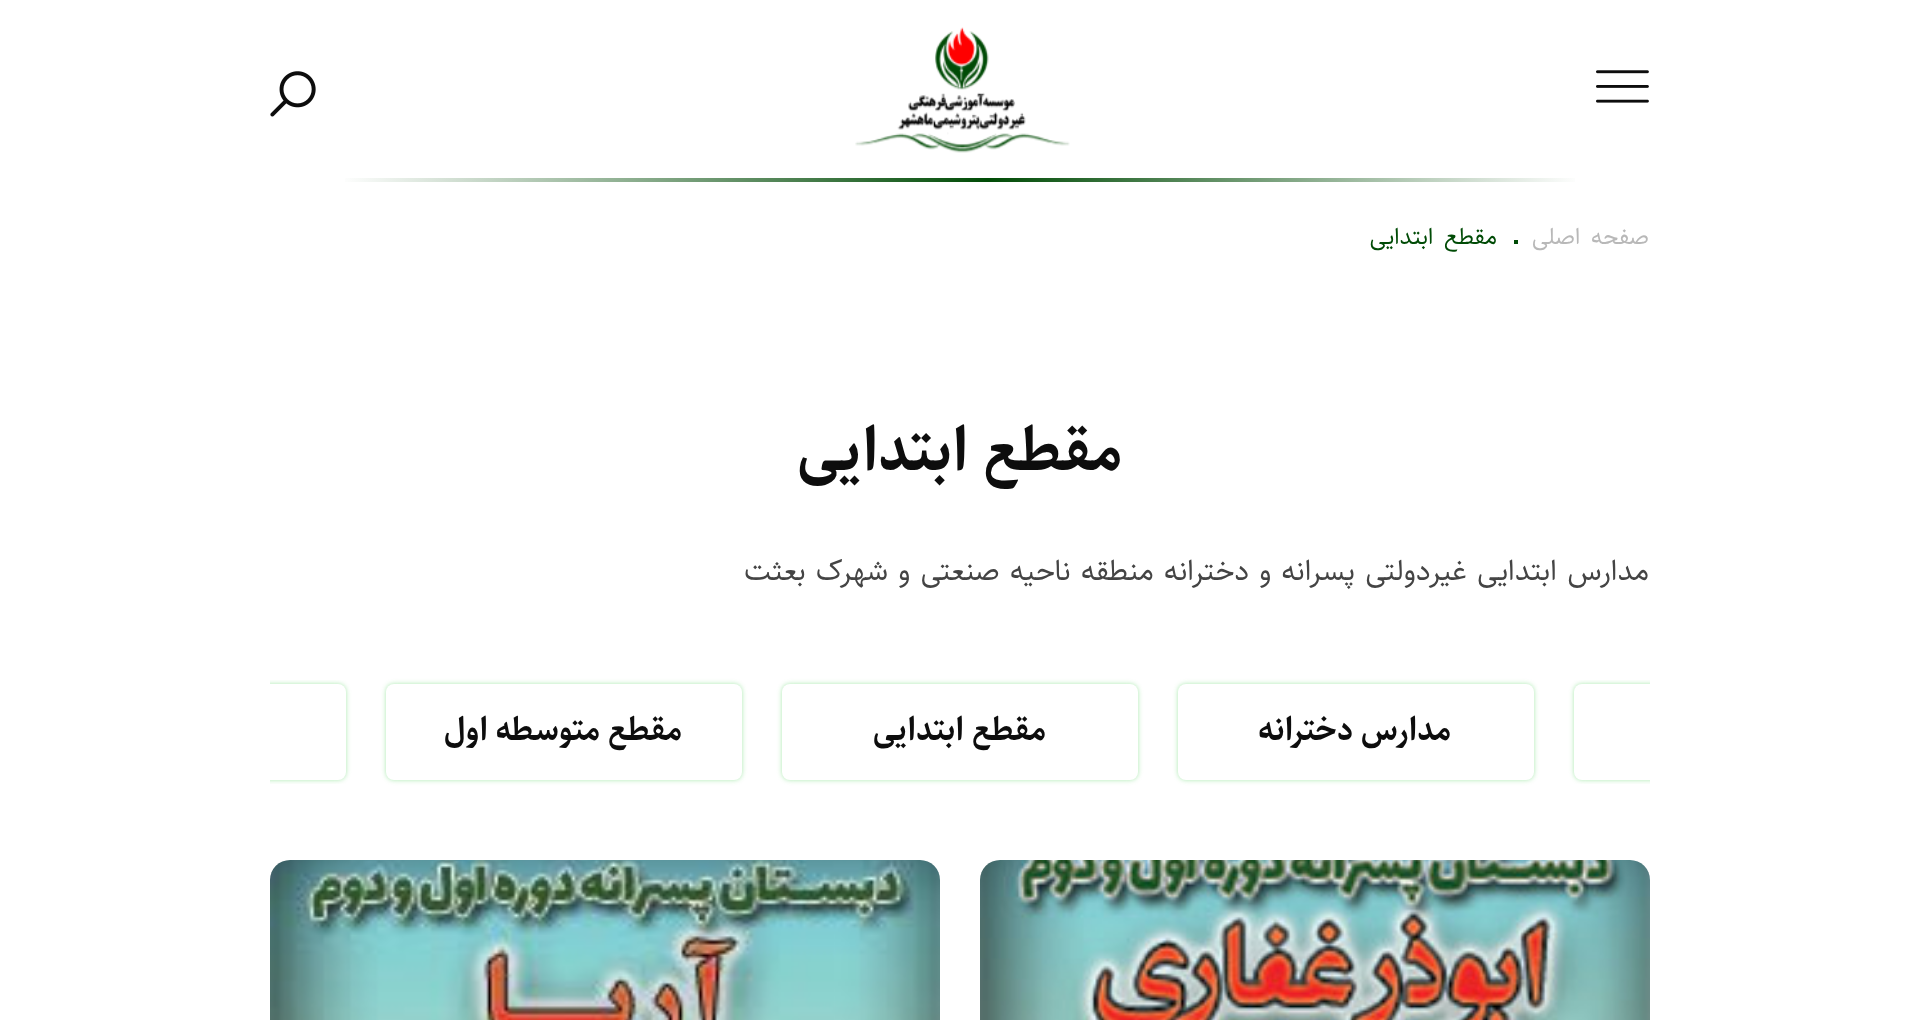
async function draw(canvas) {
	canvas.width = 1918;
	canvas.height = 1020;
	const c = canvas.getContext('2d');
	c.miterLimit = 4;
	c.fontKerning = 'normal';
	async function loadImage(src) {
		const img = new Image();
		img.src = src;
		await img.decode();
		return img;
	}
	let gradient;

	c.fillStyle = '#fff';
	c.fillRect(0, 0, 1918, 1020);
	c.drawImage(await loadImage('img1.png'), 1596, 70, 53, 33);
	c.drawImage(await loadImage('img2.png'), 855, 27, 215, 126);
	c.drawImage(await loadImage('img3.png'), 270, 71, 46, 46);
	gradient = c.createLinearGradient(270, 180, 1650, 180);
	gradient.addColorStop(0.05, '#fff');
	gradient.addColorStop(0.52, '#004b06');
	gradient.addColorStop(0.95, '#fff');
	c.fillStyle = gradient;
	c.fillRect(345, 178, 1230, 4);
	c.wordSpacing = '4px';
	c.direction = 'rtl';
	c.font = '24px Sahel';
	c.fillStyle = '#b8b8b8';
	c.fillText('صفحه اصلی', 1649, 244);
	c.fillStyle = '#004b06';
	c.fillRect(1514, 240, 4, 4);
	c.fillText('مقطع ابتدایی', 1497, 244);
	c.wordSpacing = '0px';
	c.font = 'bold 60px Sahel';
	c.fillStyle = '#0d0d0d';
	c.fillText('مقطع ابتدایی', 1122, 470);
	c.wordSpacing = '2px';
	c.font = '30px Sahel';
	c.fillStyle = '#444';
	c.fillText('مدارس ابتدایی غیردولتی پسرانه و دخترانه منطقه ناحیه صنعتی و شهرک بعثت', 1649, 580);
	c.save();
	c.beginPath();
	c.rect(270, 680, 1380, 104);
	c.clip();
	c.fillStyle = '#00c00f54';
	c.filter = 'blur(2.5px)';
	c.beginPath();
	c.roundRect(1574, 684, 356, 96, 8);
	c.fill();
	c.filter = 'none';
	c.restore();
	c.fillStyle = '#fff';
	c.beginPath();
	c.roundRect(1574, 684, 76, 96, [8, 0, 0, 8]);
	c.fill();
	c.fillStyle = '#00c00f54';
	c.filter = 'blur(2.5px)';
	c.beginPath();
	c.roundRect(1178, 684, 356, 96, 8);
	c.fill();
	c.filter = 'none';
	c.fillStyle = '#fff';
	c.beginPath();
	c.roundRect(1178, 684, 356, 96, 8);
	c.fill();
	c.wordSpacing = '0px';
	c.font = 'bold 32px Sahel';
	c.fillStyle = '#0d0d0d';
	c.fillText('مدارس دخترانه', 1451, 740);
	c.fillStyle = '#00c00f54';
	c.filter = 'blur(2.5px)';
	c.beginPath();
	c.roundRect(782, 684, 356, 96, 8);
	c.fill();
	c.filter = 'none';
	c.fillStyle = '#fff';
	c.beginPath();
	c.roundRect(782, 684, 356, 96, 8);
	c.fill();
	c.fillStyle = '#0d0d0d';
	c.fillText('مقطع ابتدایی', 1046, 740);
	c.fillStyle = '#00c00f54';
	c.filter = 'blur(2.5px)';
	c.beginPath();
	c.roundRect(386, 684, 356, 96, 8);
	c.fill();
	c.filter = 'none';
	c.fillStyle = '#fff';
	c.beginPath();
	c.roundRect(386, 684, 356, 96, 8);
	c.fill();
	c.fillStyle = '#0d0d0d';
	c.fillText('مقطع متوسطه اول', 682, 740);
	c.save();
	c.beginPath();
	c.rect(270, 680, 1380, 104);
	c.clip();
	c.fillStyle = '#00c00f54';
	c.filter = 'blur(2.5px)';
	c.beginPath();
	c.roundRect(-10, 684, 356, 96, 8);
	c.fill();
	c.filter = 'none';
	c.restore();
	c.fillStyle = '#fff';
	c.beginPath();
	c.roundRect(270, 684, 76, 96, [0, 8, 8, 0]);
	c.fill();
	c.drawImage(await loadImage('img4.png'), 980, 860, 670, 160);
	c.drawImage(await loadImage('img5.png'), 270, 860, 670, 160);
}

draw(document.querySelector('canvas'));
